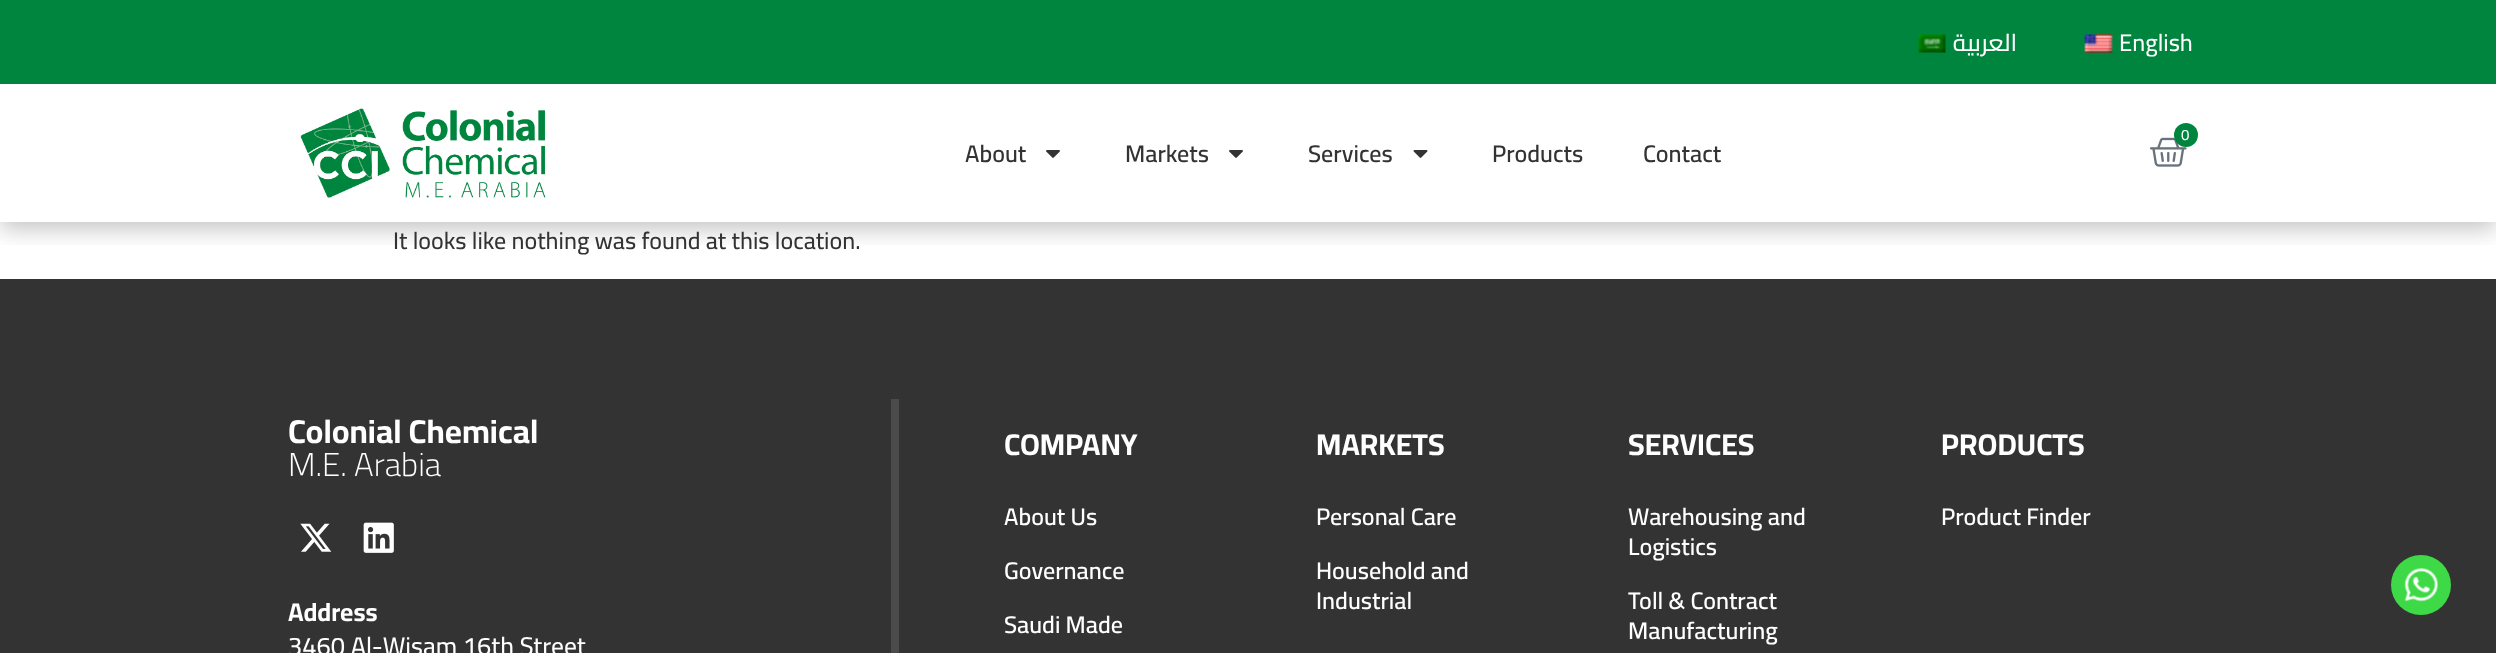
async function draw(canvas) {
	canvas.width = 2496;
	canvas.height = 653;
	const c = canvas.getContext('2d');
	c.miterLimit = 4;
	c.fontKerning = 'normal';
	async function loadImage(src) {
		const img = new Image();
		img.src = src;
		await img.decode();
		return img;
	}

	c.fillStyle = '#fff';
	c.fillRect(0, 0, 2496, 653);
	c.save();
	c.beginPath();
	c.rect(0, 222, 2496, 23);
	c.clip();
	c.fillStyle = '#00000040';
	c.filter = 'blur(12px)';
	c.beginPath();
	c.rect(0, 6, 2496, 222);
	c.fill();
	c.filter = 'none';
	c.restore();
	c.fillStyle = '#00853f';
	c.fillRect(0, 0, 2496, 84);
	c.drawImage(await loadImage('img1.png'), 1918, 34, 28, 19);
	c.direction = 'rtl';
	c.font = '500 24px Cairo';
	c.fillStyle = '#fff';
	c.fillText('العربية', 2017, 51);
	c.drawImage(await loadImage('img2.png'), 2084, 34, 29, 19);
	c.direction = 'ltr';
	c.fillText('English', 2119, 51);
	c.drawImage(await loadImage('img3.png'), 300, 108, 246, 90);
	c.drawImage(await loadImage('img4.png'), 2150, 137, 37, 30);
	c.fillStyle = '#00853f';
	c.beginPath();
	c.arc(2186, 135, 12, 0, 2 * Math.PI);
	c.fill();
	c.font = '500 15px Cairo';
	c.fillStyle = '#fff';
	c.fillText('0', 2181, 140);
	c.font = '600 24px Cairo';
	c.fillStyle = '#333';
	c.fillText('About', 965, 162);
	c.drawImage(await loadImage('img5.png'), 1046, 150, 14, 8);
	c.fillText('Markets', 1125, 162);
	c.drawImage(await loadImage('img5.png'), 1229, 150, 14, 8);
	c.fillText('Services', 1308, 162);
	c.drawImage(await loadImage('img6.png'), 1413, 150, 15, 8);
	c.fillText('Products', 1492, 162);
	c.fillText('Contact', 1643, 162);
	c.font = '500 24px Cairo';
	c.fillText('It looks like nothing was found at this location.', 393, 249);
	c.fillRect(0, 279, 2496, 374);
	c.fillStyle = '#4b4b4b';
	c.fillRect(891, 399, 8, 254);
	c.font = 'bold 33px Cairo';
	c.fillStyle = '#fff';
	c.fillText('Colonial Chemical', 288, 443);
	c.font = '300 33px Cairo';
	c.fillText('M.E. Arabia', 288, 476);
	c.drawImage(await loadImage('img7.png'), 300, 523, 32, 29);
	c.drawImage(await loadImage('img8.png'), 363, 522, 31, 31);
	c.font = 'bold 25.5px Cairo';
	c.fillText('Address', 288, 621);
	c.font = '500 25.5px Cairo';
	c.fillText('3460 Al-Wisam 16th Street', 288, 655);
	c.font = 'bold 30px Cairo';
	c.fillText('COMPANY', 1004, 455);
	c.font = '600 24px Cairo';
	for (const [text, x, y] of [
		['About Us', 1004, 525],
		['Governance', 1004, 579],
		['Saudi Made', 1004, 633],
	]) {
		c.fillText(text, x, y);
	}
	c.font = 'bold 30px Cairo';
	c.fillText('MARKETS', 1316, 455);
	c.font = '600 24px Cairo';
	for (const [text, x, y] of [
		['Personal Care', 1316, 525],
		['Household and', 1316, 579],
		['Industrial', 1316, 609],
	]) {
		c.fillText(text, x, y);
	}
	c.font = 'bold 30px Cairo';
	c.fillText('SERVICES', 1628, 455);
	c.font = '600 24px Cairo';
	for (const [text, x, y] of [
		['Warehousing and', 1628, 525],
		['Logistics', 1628, 555],
		['Toll & Contract', 1628, 609],
		['Manufacturing', 1628, 639],
	]) {
		c.fillText(text, x, y);
	}
	c.font = 'bold 30px Cairo';
	c.fillText('PRODUCTS', 1941, 455);
	c.font = '600 24px Cairo';
	c.fillText('Product Finder', 1941, 525);
	c.fillStyle = '#3ed946';
	c.beginPath();
	c.arc(2421, 585, 30, 0, 2 * Math.PI);
	c.fill();
	c.drawImage(await loadImage('img9.png'), 2404, 568, 34, 34);
}

draw(document.querySelector('canvas'));
